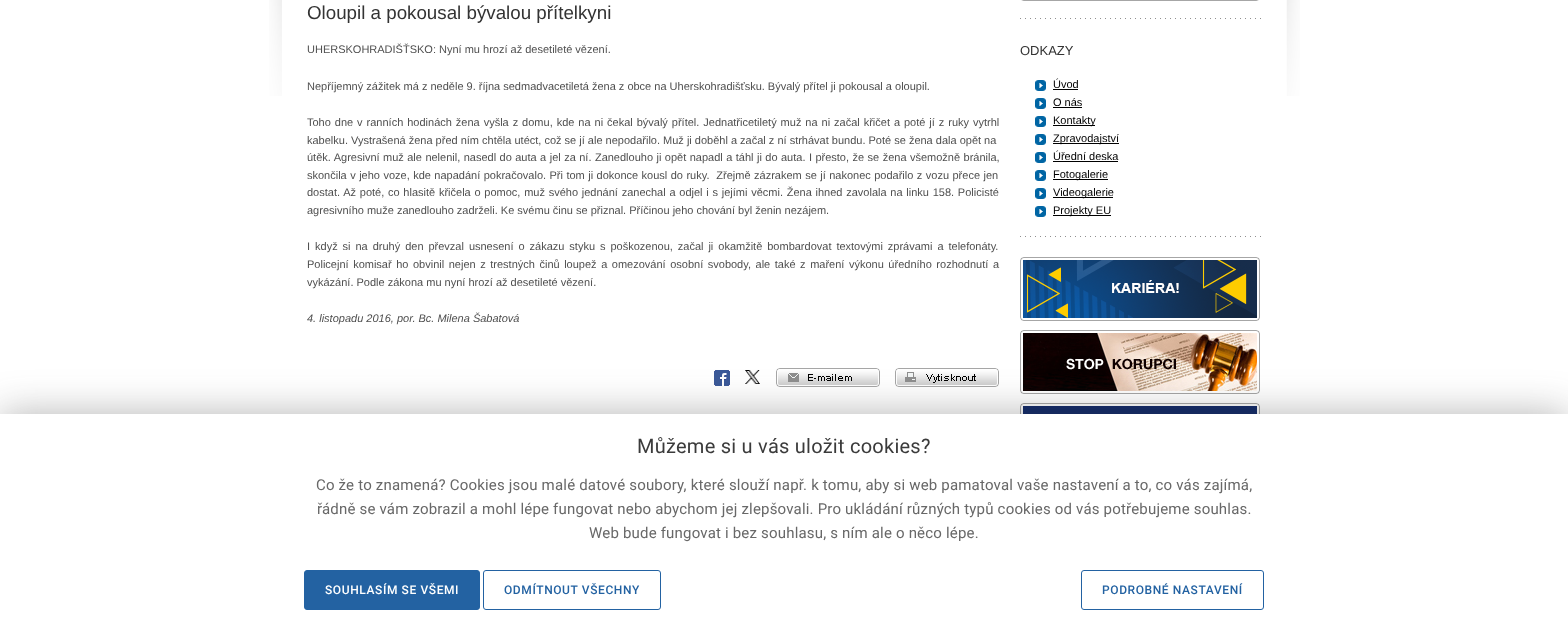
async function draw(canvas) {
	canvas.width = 1568;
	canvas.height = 630;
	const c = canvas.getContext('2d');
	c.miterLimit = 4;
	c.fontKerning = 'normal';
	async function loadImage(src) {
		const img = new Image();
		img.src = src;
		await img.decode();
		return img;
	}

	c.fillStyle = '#fff';
	c.fillRect(0, 0, 1568, 630);
	c.drawImage(await loadImage('img1.png'), 269, 0, 1031, 96);
	c.font = '18.75px Liberation Sans';
	c.fillStyle = '#333';
	c.fillText('Oloupil a pokousal bývalou přítelkyni', 307, 19);
	c.font = '11px Liberation Sans';
	c.fillStyle = '#4f4f4f';
	c.fillText('UHERSKOHRADIŠŤSKO: Nyní mu hrozí až desetileté vězení.', 307, 53);
	c.fillText('Nepříjemný zážitek má z neděle 9. října sedmadvacetiletá žena z obce na Uherskohradišťsku. Bývalý přítel ji pokousal a oloupil.', 307, 90);
	c.wordSpacing = '0.9px';
	c.fillText('Toho dne v ranních hodinách žena vyšla z domu, kde na ni čekal bývalý přítel. Jednatřicetiletý muž na ni začal křičet a poté jí z ruky vytrhl', 307, 126);
	c.wordSpacing = '0px';
	c.fillText('kabelku. Vystrašená žena před ním chtěla utéct, což se jí ale nepodařilo. Muž ji doběhl a začal z ní strhávat bundu. Poté se žena dala opět na', 307, 144);
	c.wordSpacing = '0.4px';
	c.fillText('útěk. Agresivní muž ale nelenil, nasedl do auta a jel za ní. Zanedlouho ji opět napadl a táhl ji do auta. I přesto, že se žena všemožně bránila,', 307, 161);
	c.fillText('skončila v jeho voze, kde napadání pokračovalo. Při tom ji dokonce kousl do ruky.  Zřejmě zázrakem se jí nakonec podařilo z vozu přece jen', 307, 179);
	c.wordSpacing = '0.7px';
	c.fillText('dostat. Až poté, co hlasitě křičela o pomoc, muž svého jednání zanechal a odjel i s jejími věcmi. Žena ihned zavolala na linku 158. Policisté', 307, 196);
	c.wordSpacing = '0px';
	c.fillText('agresivního muže zanedlouho zadrželi. Ke svému činu se přiznal. Příčinou jeho chování byl ženin nezájem.', 307, 214);
	c.wordSpacing = '1.9px';
	c.fillText('I když si na druhý den převzal usnesení o zákazu styku s poškozenou, začal ji okamžitě bombardovat textovými zprávami a telefonáty.', 307, 250);
	c.wordSpacing = '1.5px';
	c.fillText('Policejní komisař ho obvinil nejen z trestných činů loupež a omezování osobní svobody, ale také z maření výkonu úředního rozhodnutí a', 307, 268);
	c.wordSpacing = '0px';
	c.fillText('vykázání. Podle zákona mu nyní hrozí až desetileté vězení.', 307, 286);
	c.font = 'italic 11px Liberation Sans';
	c.fillText('4. listopadu 2016, por. Bc. Milena Šabatová', 307, 322);
	c.drawImage(await loadImage('img2.png'), 714, 370, 16, 16);
	c.drawImage(await loadImage('img3.png'), 745, 370, 15, 14);
	c.drawImage(await loadImage('img4.png'), 776, 368, 104, 19);
	c.drawImage(await loadImage('img5.png'), 895, 368, 104, 19);
	c.drawImage(await loadImage('img6.png'), 1020, 18, 241, 1);
	c.drawImage(await loadImage('img7.png'), 1021, 0, 238, 1);
	c.font = '13px Liberation Sans';
	c.fillStyle = '#333';
	c.fillText('ODKAZY', 1020, 55);
	c.drawImage(await loadImage('img6.png'), 1020, 236, 241, 1);
	c.drawImage(await loadImage('img8.png'), 1035, 80, 11, 11);
	c.font = '11px Liberation Sans';
	c.fillStyle = '#000';
	c.fillText('Úvod', 1053, 88);
	c.fillRect(1053, 89, 25, 1);
	c.drawImage(await loadImage('img8.png'), 1035, 98, 11, 11);
	c.fillText('O nás', 1053, 106);
	c.fillRect(1053, 107, 29, 1);
	c.drawImage(await loadImage('img8.png'), 1035, 116, 11, 11);
	c.fillRect(1053, 125, 42, 1);
	c.fillText('Kontakty', 1053, 124);
	c.drawImage(await loadImage('img8.png'), 1035, 134, 11, 11);
	c.fillRect(1053, 143, 66, 1);
	c.fillText('Zpravodajství', 1053, 142);
	c.drawImage(await loadImage('img8.png'), 1035, 152, 11, 11);
	c.fillText('Úřední deska', 1053, 160);
	c.fillRect(1053, 161, 65, 1);
	c.drawImage(await loadImage('img8.png'), 1035, 170, 11, 11);
	c.fillRect(1053, 179, 55, 1);
	c.fillText('Fotogalerie', 1053, 178);
	c.drawImage(await loadImage('img8.png'), 1035, 188, 11, 11);
	c.fillRect(1053, 197, 60, 1);
	c.fillText('Videogalerie', 1053, 196);
	c.drawImage(await loadImage('img8.png'), 1035, 206, 11, 11);
	c.fillRect(1053, 215, 58, 1);
	c.fillText('Projekty EU', 1053, 214);
	c.drawImage(await loadImage('img9.png'), 1020, 257, 240, 64);
	c.drawImage(await loadImage('img10.png'), 1020, 330, 240, 64);
	c.drawImage(await loadImage('img11.png'), 1020, 403, 240, 11);
	c.fillStyle = '#3b3b3b66';
	c.filter = 'blur(20px)';
	c.beginPath();
	c.rect(0, 415, 1568, 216);
	c.fill();
	c.filter = 'none';
	c.fillStyle = '#fff';
	c.fillRect(0, 414, 1568, 216);
	c.letterSpacing = '0.25px';
	c.font = '20px Roboto';
	c.fillStyle = '#3b3b3b';
	c.fillText('Můžeme si u vás uložit cookies?', 637, 453);
	c.letterSpacing = '0.19px';
	c.font = '15px Roboto';
	c.fillStyle = '#686868';
	for (const [text, x, y] of [
		['Co že to znamená? Cookies jsou malé datové soubory, které slouží např. k tomu, aby si web pamatoval vaše nastavení a to, co vás zajímá,', 316, 490],
		['řádně se vám zobrazil a mohl lépe fungovat nebo abychom jej zlepšovali. Pro ukládání různých typů cookies od vás potřebujeme souhlas.', 317, 514],
		['Web bude fungovat i bez souhlasu, s ním ale o něco lépe.', 589, 538],
	]) {
		c.fillText(text, x, y);
	}
	c.fillStyle = '#2362a2';
	c.beginPath();
	c.roundRect(304.5, 570.5, 175, 39, 2.5);
	c.fill();
	c.strokeStyle = '#2362a2';
	c.stroke();
	c.letterSpacing = '0.6px';
	c.font = '500 12px Roboto';
	c.fillStyle = '#fff';
	c.fillText('SOUHLASÍM SE VŠEMI', 325, 594);
	c.beginPath();
	c.roundRect(483.5, 570.5, 177, 39, 2.5);
	c.stroke();
	c.fillStyle = '#2362a2';
	c.fillText('ODMÍTNOUT VŠECHNY', 504, 594);
	c.beginPath();
	c.roundRect(1081.5, 570.5, 182, 39, 2.5);
	c.stroke();
	c.fillText('PODROBNÉ NASTAVENÍ', 1102, 594);
}

draw(document.querySelector('canvas'));
